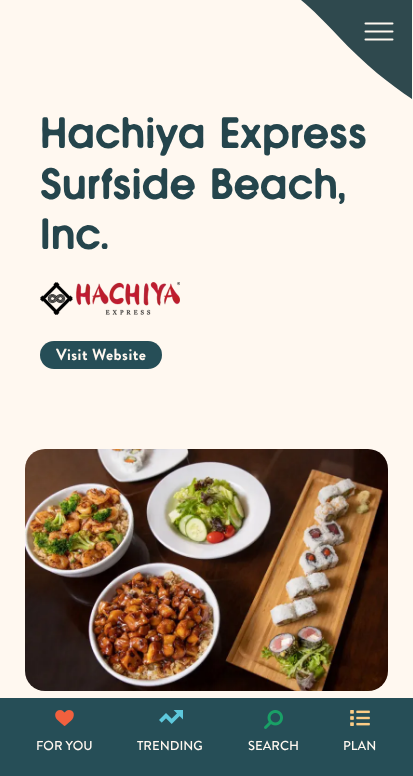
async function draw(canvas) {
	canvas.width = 413;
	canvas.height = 776;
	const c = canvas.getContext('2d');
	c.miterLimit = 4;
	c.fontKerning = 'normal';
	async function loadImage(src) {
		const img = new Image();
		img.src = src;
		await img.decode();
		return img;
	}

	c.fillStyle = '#fff8f0';
	c.fillRect(0, 0, 413, 776);
	c.fillStyle = '#2f494e';
	c.beginPath();
	c.moveTo(412, 99);
	c.bezierCurveTo(391, 85, 365, 65, 338, 36);
	c.bezierCurveTo(324, 21, 313, 10, 301, 0);
	c.lineTo(412, 0);
	c.closePath();
	c.fill();
	c.beginPath();
	c.moveTo(365.5, 39.5);
	c.lineTo(392.5, 39.5);
	c.moveTo(365.5, 31.5);
	c.lineTo(392.5, 31.5);
	c.moveTo(365.5, 23.5);
	c.lineTo(392.5, 23.5);
	c.strokeStyle = '#fff8f0';
	c.lineWidth = 2;
	c.lineCap = 'round';
	c.stroke();
	c.font = 'bold 44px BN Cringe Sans';
	c.fillStyle = '#25454c';
	for (const [text, x, y] of [
		['Hachiya Express', 40, 148],
		['Surfside Beach,', 40, 199],
		['Inc.', 40, 249],
	]) {
		c.fillText(text, x, y);
	}
	c.drawImage(await loadImage('img1.png'), 40, 282, 140, 33);
	c.fillStyle = '#264e57';
	c.beginPath();
	c.roundRect(40, 341, 122, 28, 14);
	c.fill();
	c.letterSpacing = '0.5px';
	c.font = 'bold 16px Brandon Grotesque';
	c.fillStyle = '#fff8f0';
	c.fillText('Visit Website', 56, 360);
	c.drawImage(await loadImage('img2.png'), 25, 449, 363, 242);
	c.fillStyle = '#264e57';
	c.fillRect(0, 698, 413, 78);
	c.drawImage(await loadImage('img3.png'), 55, 710, 19, 16);
	c.letterSpacing = '0px';
	c.font = '500 13px Brandon Grotesque';
	c.fillStyle = '#fff8f0';
	c.fillText('FOR YOU', 36, 750);
	c.drawImage(await loadImage('img4.png'), 159, 710, 24, 14);
	c.fillText('TRENDING', 137, 750);
	c.drawImage(await loadImage('img5.png'), 264, 710, 19, 19);
	c.fillText('SEARCH', 248, 750);
	c.drawImage(await loadImage('img6.png'), 350, 710, 20, 16);
	c.fillText('PLAN', 343, 750);
}

draw(document.querySelector('canvas'));
